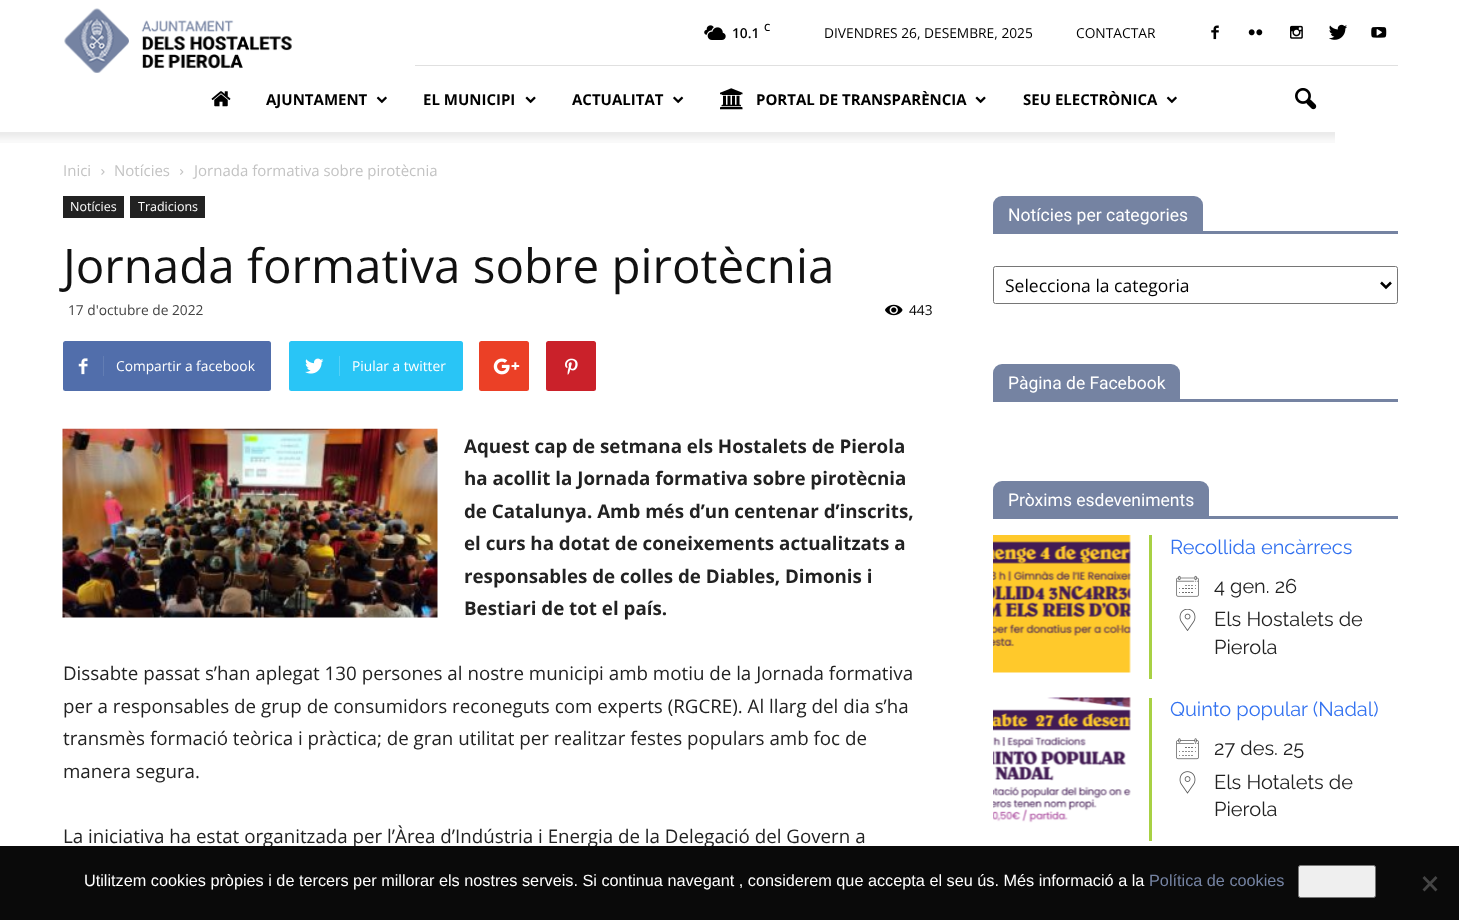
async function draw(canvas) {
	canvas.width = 1459;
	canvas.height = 920;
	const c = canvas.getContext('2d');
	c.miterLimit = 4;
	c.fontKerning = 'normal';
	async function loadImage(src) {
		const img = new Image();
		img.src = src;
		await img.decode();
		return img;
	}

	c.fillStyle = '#fff';
	c.fillRect(0, 0, 1459, 920);
	c.drawImage(await loadImage('img1.png'), 64, 8, 228, 65);
	c.fillStyle = '#e0e0e0';
	c.fillRect(415, 65, 983, 1);
	c.drawImage(await loadImage('img2.png'), 704, 25, 22, 15);
	c.font = '600 13.75px Open Sans';
	c.fillStyle = '#000';
	c.fillText('10.1', 732, 38);
	c.font = '600 10px Open Sans';
	c.fillText('C', 764, 31);
	c.font = '13.75px Open Sans';
	c.fillText('DIVENDRES 26, DESEMBRE, 2025', 824, 38);
	c.fillText('CONTACTAR', 1076, 38);
	c.drawImage(await loadImage('img3.png'), 1211, 25, 8, 15);
	c.drawImage(await loadImage('img4.png'), 1248, 29, 15, 7);
	c.drawImage(await loadImage('img5.png'), 1290, 25, 13, 14);
	c.drawImage(await loadImage('img6.png'), 1329, 24, 18, 16);
	c.drawImage(await loadImage('img7.png'), 1371, 27, 16, 11);
	c.drawImage(await loadImage('img8.png'), 211, 91, 20, 16);
	c.font = 'bold 15px Open Sans';
	c.fillText('AJUNTAMENT', 266, 105);
	c.drawImage(await loadImage('img9.png'), 376, 96, 11, 8);
	c.fillText('EL MUNICIPI', 423, 105);
	c.drawImage(await loadImage('img10.png'), 525, 96, 11, 8);
	c.fillText('ACTUALITAT', 572, 105);
	c.drawImage(await loadImage('img11.png'), 673, 96, 11, 8);
	c.drawImage(await loadImage('img12.png'), 720, 88, 23, 22);
	c.fillText('PORTAL DE TRANSPARÈNCIA', 756, 105);
	c.drawImage(await loadImage('img10.png'), 975, 96, 11, 8);
	c.fillText('SEU ELECTRÒNICA', 1023, 105);
	c.drawImage(await loadImage('img9.png'), 1166, 96, 11, 8);
	c.drawImage(await loadImage('img13.png'), 1295, 88, 22, 22);
	c.drawImage(await loadImage('img14.png'), 0, 132, 1335, 11);
	c.font = '15px Open Sans';
	c.fillStyle = '#c3c3c3';
	c.fillText('Inici', 63, 176);
	c.drawImage(await loadImage('img15.png'), 101, 169, 4, 6);
	c.fillText('Notícies', 114, 176);
	c.drawImage(await loadImage('img16.png'), 180, 169, 4, 6);
	c.fillText('Jornada formativa sobre pirotècnia', 194, 176);
	c.fillStyle = '#222';
	c.fillRect(63, 196, 61, 22);
	c.font = '12.5px Open Sans';
	c.fillStyle = '#fff';
	c.fillText('Notícies', 70, 211);
	c.fillStyle = '#222';
	c.fillRect(130, 196, 75, 22);
	c.fillStyle = '#fff';
	c.fillText('Tradicions', 138, 211);
	c.font = '47.5px Open Sans';
	c.fillStyle = '#111';
	c.fillText('Jornada formativa sobre pirotècnia', 63, 283);
	c.font = '13.75px Open Sans';
	c.fillStyle = '#444';
	c.fillText('17 d\'octubre de 2022', 68, 315);
	c.drawImage(await loadImage('img17.png'), 885, 304, 18, 12);
	c.fillStyle = '#000';
	c.fillText('443', 909, 315);
	c.fillStyle = '#516eab';
	c.beginPath();
	c.roundRect(63, 341, 208, 50, 2.5);
	c.fill();
	c.drawImage(await loadImage('img18.png'), 78, 358, 10, 17);
	c.fillStyle = '#627db3';
	c.fillRect(103, 356, 1, 20);
	c.fillStyle = '#fff';
	c.fillText('Compartir a facebook', 116, 371);
	c.fillStyle = '#29c5f6';
	c.beginPath();
	c.roundRect(289, 341, 174, 50, 2.5);
	c.fill();
	c.drawImage(await loadImage('img19.png'), 305, 358, 19, 16);
	c.fillStyle = '#54d1f8';
	c.fillRect(339, 356, 1, 20);
	c.fillStyle = '#fff';
	c.fillText('Piular a twitter', 352, 371);
	c.fillStyle = '#eb4026';
	c.beginPath();
	c.roundRect(479, 341, 50, 50, 2.5);
	c.fill();
	c.drawImage(await loadImage('img20.png'), 493, 358, 27, 17);
	c.fillStyle = '#ca212a';
	c.beginPath();
	c.roundRect(546, 341, 50, 50, 2.5);
	c.fill();
	c.drawImage(await loadImage('img21.png'), 565, 358, 13, 17);
	c.drawImage(await loadImage('img22.png'), 62, 428, 376, 190);
	c.font = 'bold 18.75px Open Sans';
	c.fillStyle = '#222';
	for (const [text, x, y] of [
		['Aquest cap de setmana els Hostalets de Pierola', 464, 453],
		['ha acollit la Jornada formativa sobre pirotècnia', 464, 485],
		['de Catalunya. Amb més d’un centenar d’inscrits,', 464, 518],
		['el curs ha dotat de coneixements actualitzats a', 464, 550],
		['responsables de colles de Diables, Dimonis i', 464, 583],
		['Bestiari de tot el país.', 464, 615],
	]) {
		c.fillText(text, x, y);
	}
	c.font = '18.75px Open Sans';
	for (const [text, x, y] of [
		['Dissabte passat s’han aplegat 130 persones al nostre municipi amb motiu de la Jornada formativa', 63, 680],
		['per a responsables de grup de consumidors reconeguts com experts (RGCRE). Al llarg del dia s’ha', 63, 713],
		['transmès formació teòrica i pràctica; de gran utilitat per realitzar festes populars amb foc de', 63, 745],
		['manera segura.', 63, 778],
		['La iniciativa ha estat organitzada per l’Àrea d’Indústria i Energia de la Delegació del Govern a', 63, 843],
	]) {
		c.fillText(text, x, y);
	}
	c.fillStyle = '#7583a2';
	c.fillRect(993, 231, 405, 3);
	c.beginPath();
	c.roundRect(993, 196, 210, 35, [9, 9, 0, 0]);
	c.fill();
	c.font = '17.5px Roboto';
	c.fillStyle = '#fff';
	c.fillText('Notícies per categories', 1008, 221);
	c.beginPath();
	c.roundRect(993.5, 266.5, 404, 37, 2);
	c.strokeStyle = '#767676';
	c.stroke();
	c.beginPath();
	c.moveTo(1381, 282.5);
	c.lineTo(1386, 287.5);
	c.lineTo(1391, 282.5);
	c.strokeStyle = '#000';
	c.lineWidth = 2.5;
	c.stroke();
	c.font = '17.5px Open Sans';
	c.fillStyle = '#000';
	c.fillText('Selecciona la categoria', 1005, 292);
	c.fillStyle = '#7583a2';
	c.fillRect(993, 399, 405, 3);
	c.beginPath();
	c.roundRect(993, 364, 187, 35, [9, 9, 0, 0]);
	c.fill();
	c.font = '17.5px Roboto';
	c.fillStyle = '#fff';
	c.fillText('Pàgina de Facebook', 1008, 389);
	c.fillStyle = '#7583a2';
	c.fillRect(993, 516, 405, 3);
	c.beginPath();
	c.roundRect(993, 481, 216, 35, [9, 9, 0, 0]);
	c.fill();
	c.fillStyle = '#fff';
	c.fillText('Pròxims esdeveniments', 1008, 506);
	c.drawImage(await loadImage('img23.png'), 993, 535, 138, 138);
	c.fillStyle = '#a8d144';
	c.fillRect(1149, 535, 3, 144);
	c.font = '20px Raleway';
	c.fillStyle = '#3372f0';
	c.fillText('Recollida encàrrecs', 1170, 554);
	c.drawImage(await loadImage('img24.png'), 1176, 575, 23, 22);
	c.fillStyle = '#222';
	c.fillText('4 gen. 26', 1214, 593);
	c.drawImage(await loadImage('img25.png'), 1179, 609, 17, 22);
	c.fillText('Els Hostalets de', 1214, 626);
	c.fillText('Pierola', 1214, 654);
	c.drawImage(await loadImage('img26.png'), 993, 697, 138, 126);
	c.fillStyle = '#a8d144';
	c.fillRect(1149, 698, 3, 143);
	c.fillStyle = '#3372f0';
	c.fillText('Quinto popular (Nadal)', 1170, 716);
	c.drawImage(await loadImage('img27.png'), 1176, 738, 23, 22);
	c.fillStyle = '#222';
	c.fillText('27 des. 25', 1214, 755);
	c.drawImage(await loadImage('img28.png'), 1179, 771, 17, 23);
	c.fillText('Els Hotalets de', 1214, 789);
	c.fillText('Pierola', 1214, 816);
	c.fillStyle = '#0a0a0a';
	c.fillRect(0, 846, 1459, 74);
	c.font = '16.25px Liberation Sans';
	c.fillStyle = '#fff';
	c.fillText('Utilitzem cookies pròpies i de tercers per millorar els nostres serveis. Si continua navegant , considerem que accepta el seu ús. Més informació a la', 84, 886);
	c.fillStyle = '#7583a2';
	c.fillText('Política de cookies', 1149, 886);
	c.fillStyle = '#efefef';
	c.beginPath();
	c.roundRect(1298.5, 865.5, 77, 32, 2);
	c.fill();
	c.strokeStyle = '#767676';
	c.lineWidth = 1;
	c.stroke();
	c.fillStyle = '#454545';
	c.beginPath();
	c.moveTo(1435.5, 876);
	c.lineTo(1437.5, 878);
	c.lineTo(1424.5, 891.5);
	c.lineTo(1422.5, 889.5);
	c.closePath();
	c.fill();
	c.beginPath();
	c.moveTo(1422.5, 878);
	c.lineTo(1424.5, 876);
	c.lineTo(1437.5, 889.5);
	c.lineTo(1435.5, 891.5);
	c.closePath();
	c.fill();
}

draw(document.querySelector('canvas'));
